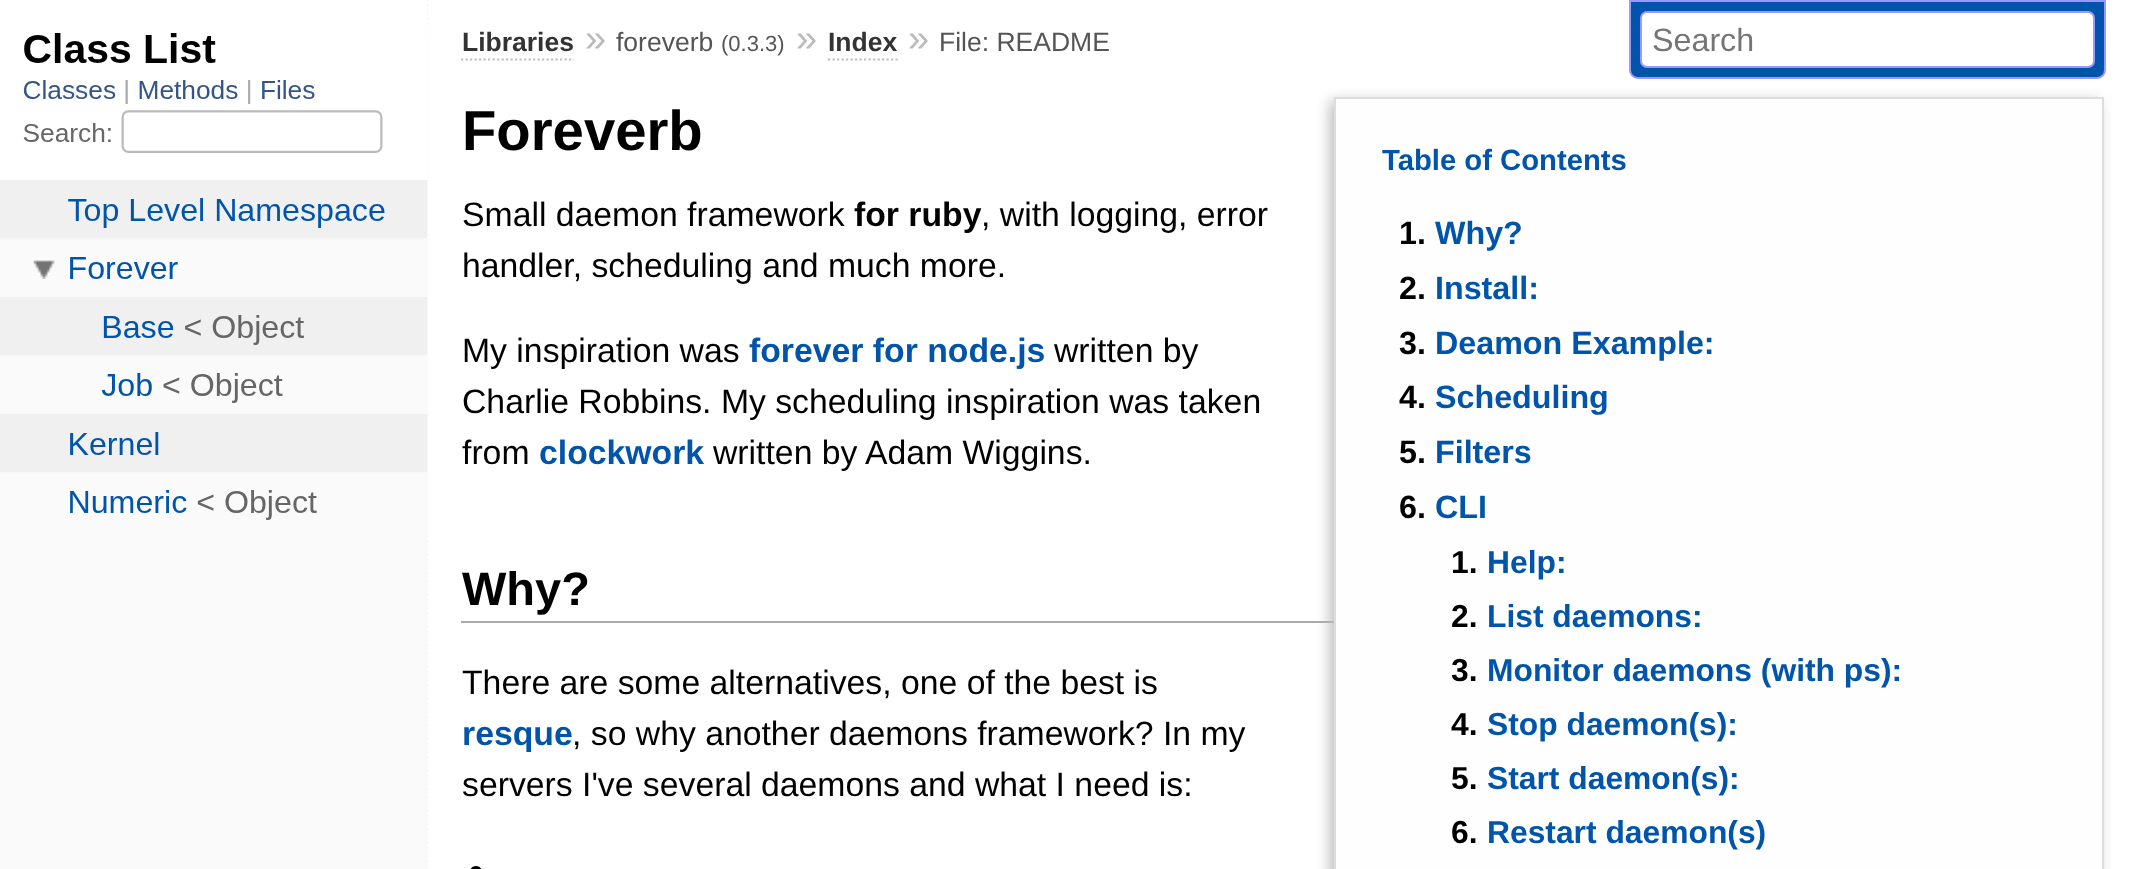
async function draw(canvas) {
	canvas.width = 2131;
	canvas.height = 869;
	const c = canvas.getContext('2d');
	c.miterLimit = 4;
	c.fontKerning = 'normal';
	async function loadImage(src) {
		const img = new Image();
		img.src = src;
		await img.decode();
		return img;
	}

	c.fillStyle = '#fff';
	c.fillRect(0, 0, 2131, 869);
	c.beginPath();
	c.moveTo(428.5, 0);
	c.lineTo(428.5, 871);
	c.strokeStyle = '#eee';
	c.lineWidth = 2.2;
	c.setLineDash([2.25, 2.25]);
	c.stroke();
	c.drawImage(await loadImage('img1.png'), 0, 33, 428, 836);
	c.fillRect(428, 0, 2, 869);
	c.font = 'bold 26.5px Liberation Sans';
	c.fillStyle = '#333';
	c.fillText('Libraries', 462, 51);
	c.beginPath();
	c.moveTo(461, 59.5);
	c.lineTo(574, 59.5);
	c.strokeStyle = '#bbd';
	c.stroke();
	c.font = '38px Liberation Sans';
	c.fillStyle = '#bbb';
	c.fillText('»', 585, 51);
	c.font = '26.5px Liberation Sans';
	c.fillStyle = '#555';
	c.fillText('foreverb', 616, 51);
	c.font = '22px Liberation Sans';
	c.fillText('(0.3.3)', 721, 51);
	c.font = '38px Liberation Sans';
	c.fillStyle = '#bbb';
	c.fillText('»', 796, 51);
	c.font = 'bold 26.5px Liberation Sans';
	c.fillStyle = '#333';
	c.fillText('Index', 828, 51);
	c.beginPath();
	c.moveTo(828, 59.5);
	c.lineTo(898, 59.5);
	c.stroke();
	c.font = '38px Liberation Sans';
	c.fillStyle = '#bbb';
	c.fillText('»', 908, 51);
	c.font = '26.5px Liberation Sans';
	c.fillStyle = '#555';
	c.fillText('File: README', 939, 51);
	c.fillStyle = '#05a';
	c.beginPath();
	c.roundRect(1630, 1, 475, 77, [0, 0, 8, 8]);
	c.fill();
	c.strokeStyle = '#99f';
	c.lineWidth = 2;
	c.setLineDash([]);
	c.stroke();
	c.fillStyle = '#fff';
	c.beginPath();
	c.roundRect(1641, 12, 453, 55, 6);
	c.fill();
	c.stroke();
	c.font = '32.25px Liberation Sans';
	c.fillStyle = '#757575';
	c.fillText('Search', 1652, 51);
	c.font = 'bold 56.25px Liberation Sans';
	c.fillStyle = '#000';
	c.fillText('Foreverb', 462, 150);
	c.font = '33.75px Liberation Sans';
	c.fillText('Small daemon framework', 462, 226);
	c.font = 'bold 33.75px Liberation Sans';
	c.fillText('for ruby', 854, 226);
	c.font = '33.75px Liberation Sans';
	for (const [text, x, y] of [
		[', with logging, error', 981, 226],
		['handler, scheduling and much more.', 462, 277],
		['My inspiration was', 462, 362],
	]) {
		c.fillText(text, x, y);
	}
	c.font = 'bold 33.75px Liberation Sans';
	c.fillStyle = '#05a';
	c.fillText('forever for node.js', 749, 362);
	c.font = '33.75px Liberation Sans';
	c.fillStyle = '#000';
	for (const [text, x, y] of [
		['written by', 1054, 362],
		['Charlie Robbins. My scheduling inspiration was taken', 462, 413],
		['from', 462, 464],
	]) {
		c.fillText(text, x, y);
	}
	c.font = 'bold 33.75px Liberation Sans';
	c.fillStyle = '#05a';
	c.fillText('clockwork', 539, 464);
	c.font = '33.75px Liberation Sans';
	c.fillStyle = '#000';
	c.fillText('written by Adam Wiggins.', 713, 464);
	c.fillStyle = '#aaa';
	c.fillRect(461, 621, 873, 2);
	c.font = 'bold 47px Liberation Sans';
	c.fillStyle = '#000';
	c.fillText('Why?', 462, 605);
	c.font = '33.75px Liberation Sans';
	c.fillText('There are some alternatives, one of the best is', 462, 694);
	c.font = 'bold 33.75px Liberation Sans';
	c.fillStyle = '#05a';
	c.fillText('resque', 462, 745);
	c.font = '33.75px Liberation Sans';
	c.fillStyle = '#000';
	c.fillText(', so why another daemons framework? In my', 572, 745);
	c.fillText('servers I\'ve several daemons and what I need is:', 462, 796);
	c.beginPath();
	c.moveTo(476, 866);
	c.bezierCurveTo(479.5, 866, 482, 868.5, 482, 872);
	c.lineTo(482, 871);
	c.lineTo(470, 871);
	c.lineTo(470, 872);
	c.bezierCurveTo(470, 868.5, 472.5, 866, 476, 866);
	c.closePath();
	c.fill();
	c.fillStyle = '#bbb';
	c.filter = 'blur(7px)';
	c.beginPath();
	c.rect(1330, 101, 769, 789);
	c.fill();
	c.filter = 'none';
	c.fillStyle = '#fefefe';
	c.beginPath();
	c.rect(1335, 98, 768, 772);
	c.fill();
	c.strokeStyle = '#ddd';
	c.stroke();
	c.font = 'bold 29.25px Liberation Sans';
	c.fillStyle = '#05a';
	c.fillText('Table of Contents', 1382, 170);
	c.font = 'bold 32.25px Liberation Sans';
	c.fillStyle = '#000';
	c.fillText('1.', 1399, 244);
	c.fillStyle = '#05a';
	c.fillText('Why?', 1435, 244);
	c.fillStyle = '#000';
	c.fillText('2.', 1399, 299);
	c.fillStyle = '#05a';
	c.fillText('Install:', 1435, 299);
	c.fillStyle = '#000';
	c.fillText('3.', 1399, 354);
	c.fillStyle = '#05a';
	c.fillText('Deamon Example:', 1435, 354);
	c.fillStyle = '#000';
	c.fillText('4.', 1399, 408);
	c.fillStyle = '#05a';
	c.fillText('Scheduling', 1435, 408);
	c.fillStyle = '#000';
	c.fillText('5.', 1399, 463);
	c.fillStyle = '#05a';
	c.fillText('Filters', 1435, 463);
	c.fillStyle = '#000';
	c.fillText('6.', 1399, 518);
	c.fillStyle = '#05a';
	c.fillText('CLI', 1435, 518);
	c.font = 'bold 31.8px Liberation Sans';
	c.fillStyle = '#000';
	c.fillText('1.', 1451, 573);
	c.fillStyle = '#05a';
	c.fillText('Help:', 1487, 573);
	c.fillStyle = '#000';
	c.fillText('2.', 1451, 627);
	c.fillStyle = '#05a';
	c.fillText('List daemons:', 1487, 627);
	c.fillStyle = '#000';
	c.fillText('3.', 1451, 681);
	c.fillStyle = '#05a';
	c.fillText('Monitor daemons (with ps):', 1487, 681);
	c.fillStyle = '#000';
	c.fillText('4.', 1451, 735);
	c.fillStyle = '#05a';
	c.fillText('Stop daemon(s):', 1487, 735);
	c.fillStyle = '#000';
	c.fillText('5.', 1451, 789);
	c.fillStyle = '#05a';
	c.fillText('Start daemon(s):', 1487, 789);
	c.fillStyle = '#000';
	c.fillText('6.', 1451, 843);
	c.fillStyle = '#05a';
	c.fillText('Restart daemon(s)', 1487, 843);
}

draw(document.querySelector('canvas'));
